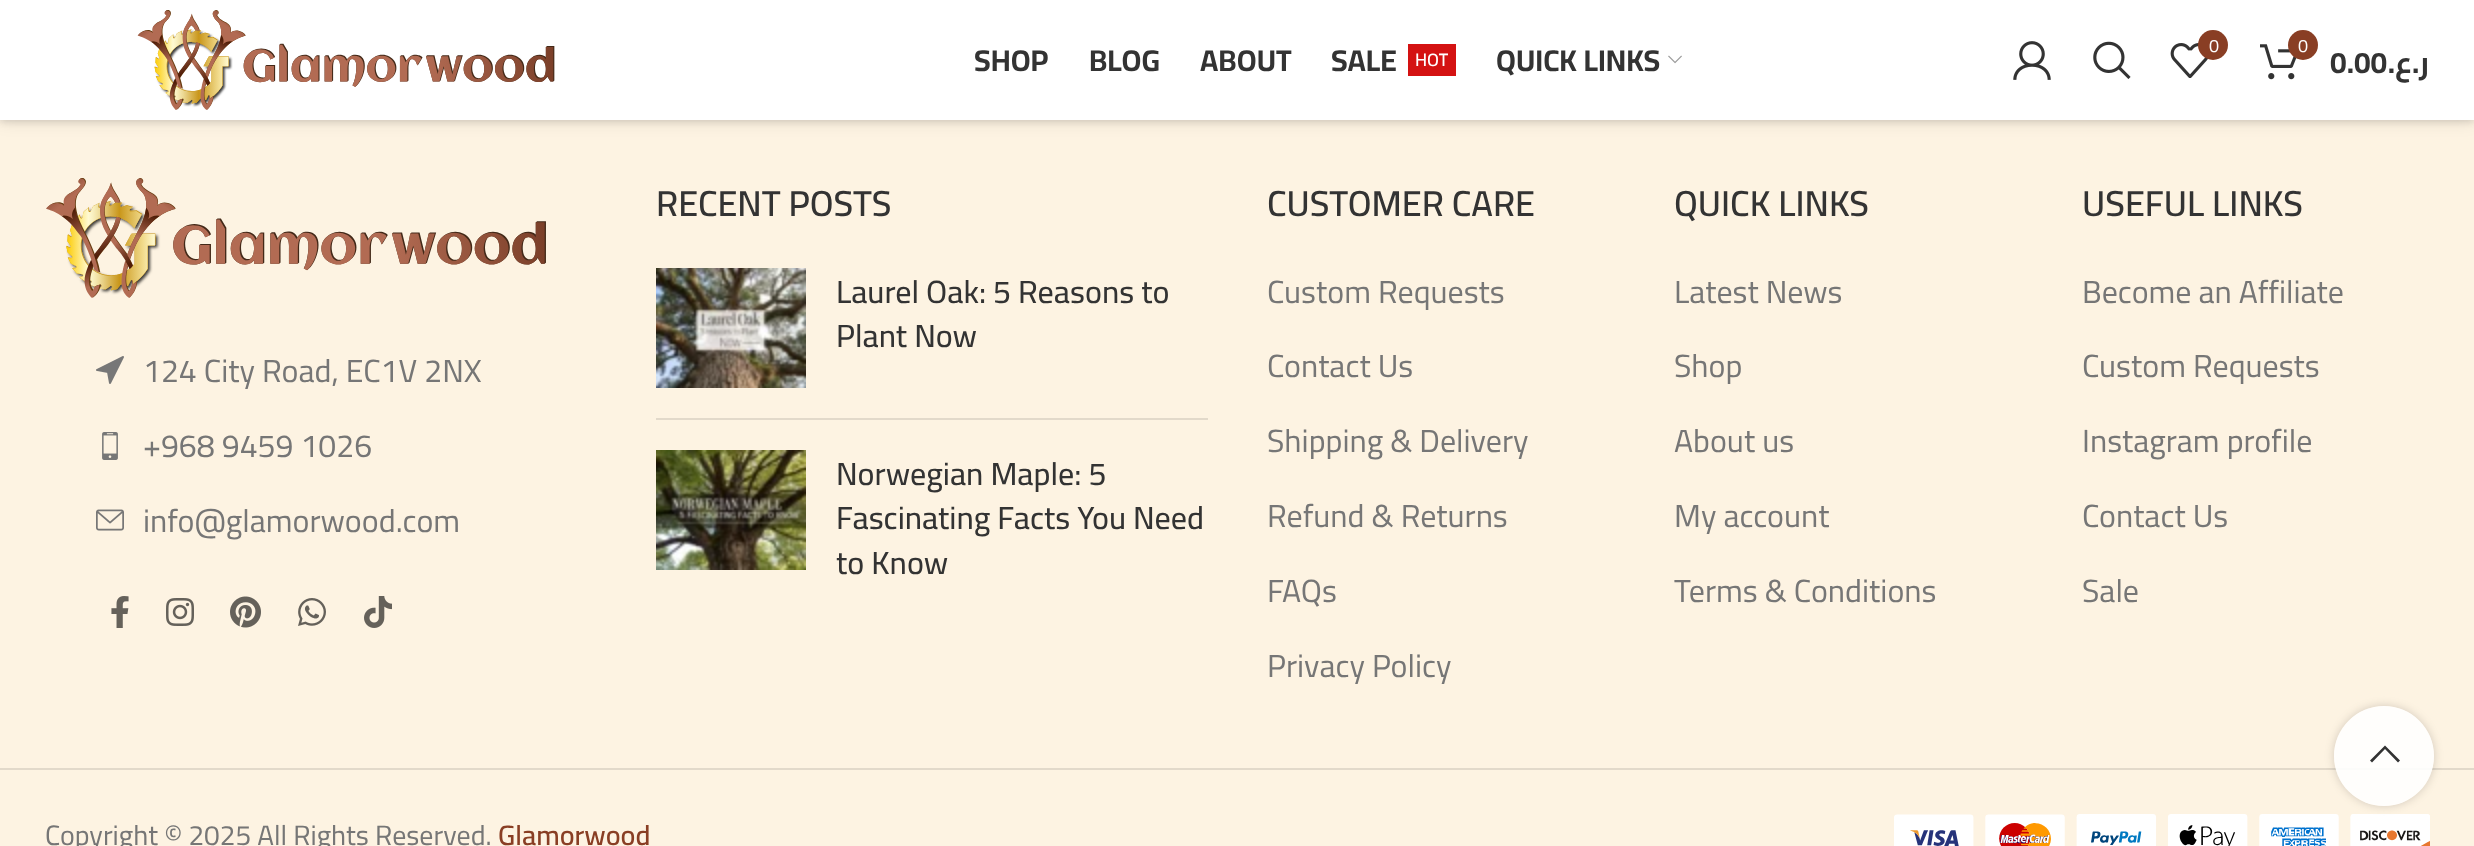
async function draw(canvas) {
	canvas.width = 2474;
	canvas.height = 846;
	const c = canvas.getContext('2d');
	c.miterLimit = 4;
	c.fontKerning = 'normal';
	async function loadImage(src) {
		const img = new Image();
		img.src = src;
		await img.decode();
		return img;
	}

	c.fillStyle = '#fdf3e2';
	c.fillRect(0, 0, 2474, 846);
	c.fillStyle = '#0000001a';
	c.filter = 'blur(3px)';
	c.beginPath();
	c.rect(0, 2, 2474, 120);
	c.fill();
	c.filter = 'none';
	c.filter = 'blur(8px)';
	c.beginPath();
	c.rect(0, 2, 2474, 120);
	c.fill();
	c.filter = 'none';
	c.fillStyle = '#fff';
	c.fillRect(0, 0, 2474, 120);
	c.drawImage(await loadImage('img1.png'), 137, 10, 418, 100);
	c.font = 'bold 30px Cairo';
	c.fillStyle = '#333';
	for (const [text, x, y] of [
		['SHOP', 974, 71],
		['BLOG', 1089, 71],
		['ABOUT', 1200, 71],
		['SALE', 1331, 71],
	]) {
		c.fillText(text, x, y);
	}
	c.fillStyle = '#d41212';
	c.fillRect(1408, 44, 48, 32);
	c.font = '600 18px Cairo';
	c.fillStyle = '#fff';
	c.fillText('HOT', 1415, 66);
	c.font = 'bold 30px Cairo';
	c.fillStyle = '#333';
	c.fillText('QUICK LINKS', 1496, 71);
	c.drawImage(await loadImage('img2.png'), 1668, 55, 14, 9);
	c.drawImage(await loadImage('img3.png'), 2013, 41, 38, 39);
	c.drawImage(await loadImage('img4.png'), 2093, 41, 38, 38);
	c.drawImage(await loadImage('img5.png'), 2170, 43, 38, 35);
	c.fillStyle = '#893e24';
	c.beginPath();
	c.arc(2213, 45, 15, 0, 2 * Math.PI);
	c.fill();
	c.font = '18px Cairo';
	c.fillStyle = '#fff';
	c.fillText('0', 2209, 52);
	c.drawImage(await loadImage('img6.png'), 2260, 44, 37, 36);
	c.fillStyle = '#893e24';
	c.beginPath();
	c.arc(2303, 45, 15, 0, 2 * Math.PI);
	c.fill();
	c.fillStyle = '#fff';
	c.fillText('0', 2298, 52);
	c.font = 'bold 30px Cairo';
	c.fillStyle = '#333';
	c.fillText('0.00', 2330, 73);
	c.direction = 'rtl';
	c.fillText('ر.ع.', 2429, 73);
	c.drawImage(await loadImage('img7.png'), 46, 178, 500, 120);
	c.drawImage(await loadImage('img8.png'), 96, 356, 28, 28);
	c.direction = 'ltr';
	c.font = '32px Cairo';
	c.fillStyle = '#767676';
	c.fillText('124 City Road, EC1V 2NX', 143, 382);
	c.drawImage(await loadImage('img9.png'), 102, 432, 16, 28);
	c.fillText('+968 9459 1026', 143, 457);
	c.drawImage(await loadImage('img10.png'), 96, 509, 28, 22);
	c.fillText('info@glamorwood.com', 143, 532);
	c.drawImage(await loadImage('img11.png'), 111, 596, 18, 32);
	c.drawImage(await loadImage('img12.png'), 166, 598, 28, 28);
	c.drawImage(await loadImage('img13.png'), 230, 596, 31, 32);
	c.drawImage(await loadImage('img14.png'), 298, 598, 28, 28);
	c.drawImage(await loadImage('img15.png'), 364, 596, 28, 32);
	c.font = '600 36px Cairo';
	c.fillStyle = '#333';
	c.fillText('RECENT POSTS', 656, 216);
	c.fillStyle = '#e2d9ca';
	c.fillRect(656, 418, 552, 2);
	c.drawImage(await loadImage('img16.png'), 656, 268, 150, 120);
	c.font = '500 32px Cairo';
	c.fillStyle = '#333';
	c.fillText('Laurel Oak: 5 Reasons to', 836, 303);
	c.fillText('Plant Now', 836, 347);
	c.drawImage(await loadImage('img17.png'), 656, 450, 150, 120);
	for (const [text, x, y] of [
		['Norwegian Maple: 5', 836, 485],
		['Fascinating Facts You Need', 836, 529],
		['to Know', 836, 574],
	]) {
		c.fillText(text, x, y);
	}
	c.font = '600 36px Cairo';
	c.fillText('CUSTOMER CARE', 1267, 216);
	c.font = '32px Cairo';
	c.fillStyle = '#767676';
	for (const [text, x, y] of [
		['Custom Requests', 1267, 303],
		['Contact Us', 1267, 377],
		['Shipping & Delivery', 1267, 452],
		['Refund & Returns', 1267, 527],
		['FAQs', 1267, 602],
		['Privacy Policy', 1267, 677],
	]) {
		c.fillText(text, x, y);
	}
	c.font = '600 36px Cairo';
	c.fillStyle = '#333';
	c.fillText('QUICK LINKS', 1674, 216);
	c.font = '32px Cairo';
	c.fillStyle = '#767676';
	for (const [text, x, y] of [
		['Latest News', 1674, 303],
		['Shop', 1674, 377],
		['About us', 1674, 452],
		['My account', 1674, 527],
		['Terms & Conditions', 1674, 602],
	]) {
		c.fillText(text, x, y);
	}
	c.font = '600 36px Cairo';
	c.fillStyle = '#333';
	c.fillText('USEFUL LINKS', 2082, 216);
	c.font = '32px Cairo';
	c.fillStyle = '#767676';
	for (const [text, x, y] of [
		['Become an Affiliate', 2082, 303],
		['Custom Requests', 2082, 377],
		['Instagram profile', 2082, 452],
		['Contact Us', 2082, 527],
		['Sale', 2082, 602],
	]) {
		c.fillText(text, x, y);
	}
	c.fillStyle = '#e2d9ca';
	c.fillRect(0, 768, 2474, 2);
	c.font = '28px Cairo';
	c.fillStyle = '#767676';
	c.fillText('Copyright © 2025 All Rights Reserved.', 45, 845);
	c.font = '600 28px Cairo';
	c.fillStyle = '#893e24';
	c.fillText('Glamorwood', 498, 845);
	c.drawImage(await loadImage('img18.png'), 1894, 814, 536, 32);
	c.save();
	c.beginPath();
	c.moveTo(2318, 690);
	c.lineTo(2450, 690);
	c.lineTo(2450, 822);
	c.lineTo(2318, 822);
	c.closePath();
	c.moveTo(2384, 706);
	c.bezierCurveTo(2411.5, 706, 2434, 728.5, 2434, 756);
	c.bezierCurveTo(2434, 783.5, 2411.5, 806, 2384, 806);
	c.bezierCurveTo(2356.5, 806, 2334, 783.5, 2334, 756);
	c.bezierCurveTo(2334, 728.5, 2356.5, 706, 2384, 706);
	c.closePath();
	c.clip('evenodd');
	c.fillStyle = '#0000002b';
	c.filter = 'blur(5px)';
	c.beginPath();
	c.roundRect(2334, 706, 100, 100, 50);
	c.fill();
	c.filter = 'none';
	c.restore();
	c.fillStyle = '#ffffffe6';
	c.beginPath();
	c.arc(2384, 756, 50, 0, 2 * Math.PI);
	c.fill();
	c.fillStyle = '#333';
	c.beginPath();
	c.moveTo(2398, 762.5);
	c.lineTo(2400, 760.5);
	c.lineTo(2385, 745.5);
	c.lineTo(2370, 760.5);
	c.lineTo(2372, 762.5);
	c.lineTo(2385, 749);
	c.closePath();
	c.fill();
}

draw(document.querySelector('canvas'));
